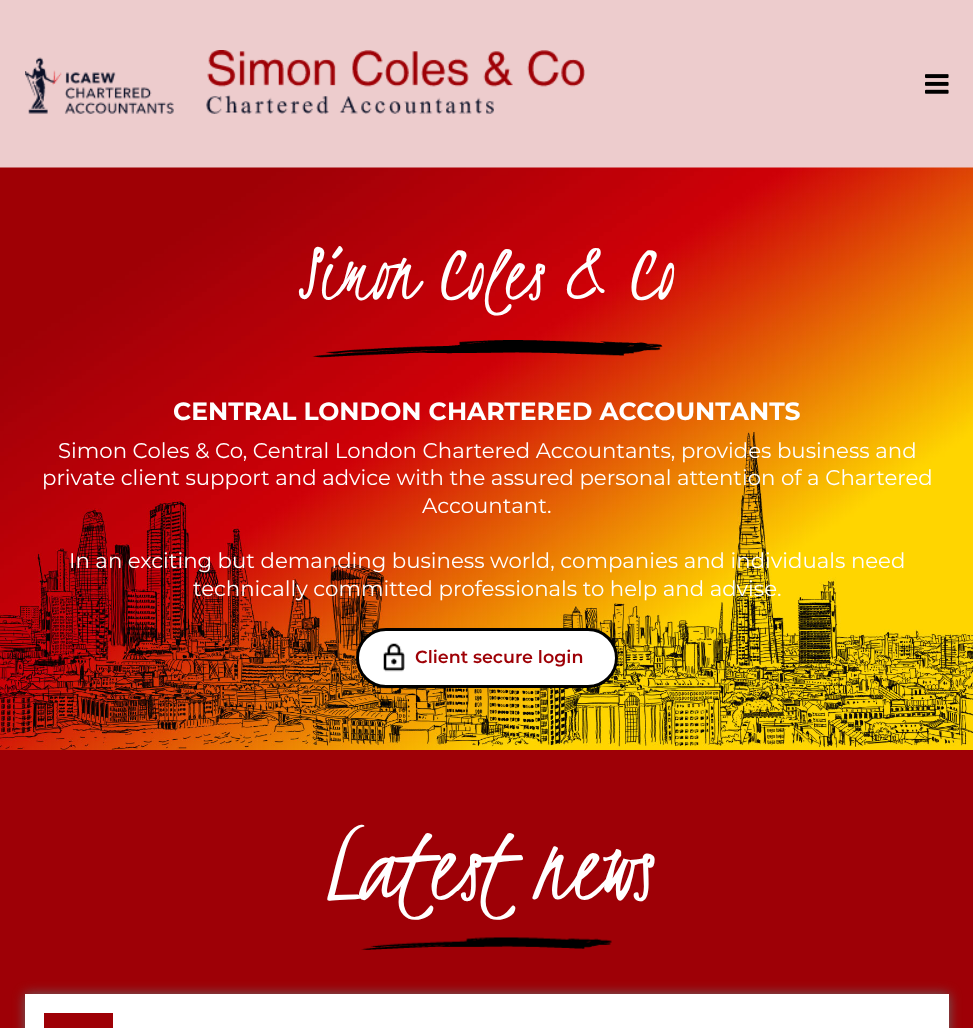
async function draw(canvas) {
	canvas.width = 973;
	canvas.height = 1028;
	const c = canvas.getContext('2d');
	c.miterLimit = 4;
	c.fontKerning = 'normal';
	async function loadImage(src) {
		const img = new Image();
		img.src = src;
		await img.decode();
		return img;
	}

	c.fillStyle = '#edcccd';
	c.fillRect(0, 0, 973, 1028);
	c.drawImage(await loadImage('img1.png'), 25, 50, 560, 64);
	c.drawImage(await loadImage('img2.png'), 925, 74, 24, 20);
	c.drawImage(await loadImage('img3.png'), 0, 167, 973, 583);
	c.font = '87.5px Kristi';
	c.fillStyle = '#fff';
	c.fillText('Simon Coles & Co', 299, 298);
	c.drawImage(await loadImage('img4.png'), 312, 340, 351, 18);
	c.font = 'bold 25px Montserrat';
	c.fillText('CENTRAL LONDON CHARTERED ACCOUNTANTS', 173, 420);
	c.font = '21.25px Montserrat';
	for (const [text, x, y] of [
		['Simon Coles & Co, Central London Chartered Accountants, provides business and', 58, 458],
		['private client support and advice with the assured personal attention of a Chartered', 42, 485],
		['Accountant.', 422, 513],
		['In an exciting but demanding business world, companies and individuals need', 69, 568],
		['technically committed professionals to help and advise.', 193, 596],
	]) {
		c.fillText(text, x, y);
	}
	c.beginPath();
	c.roundRect(357.5, 629.5, 259, 57, 28.5);
	c.fill();
	c.strokeStyle = '#000';
	c.lineWidth = 3;
	c.stroke();
	c.drawImage(await loadImage('img5.png'), 383, 643, 22, 29);
	c.font = '600 17.5px Montserrat';
	c.fillStyle = '#9e0006';
	c.fillText('Client secure login', 415, 663);
	c.fillRect(0, 750, 973, 278);
	c.font = '112.5px Kristi';
	c.fillStyle = '#fff';
	c.fillText('Latest news', 325, 898);
	c.drawImage(await loadImage('img6.png'), 361, 937, 251, 13);
	c.fillStyle = '#666';
	c.filter = 'blur(6px)';
	c.beginPath();
	c.rect(25, 994, 924, 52);
	c.fill();
	c.filter = 'none';
	c.fillStyle = '#fff';
	c.fillRect(25, 994, 924, 34);
	c.fillStyle = '#9e0006';
	c.fillRect(44, 1013, 69, 15);
}

draw(document.querySelector('canvas'));
